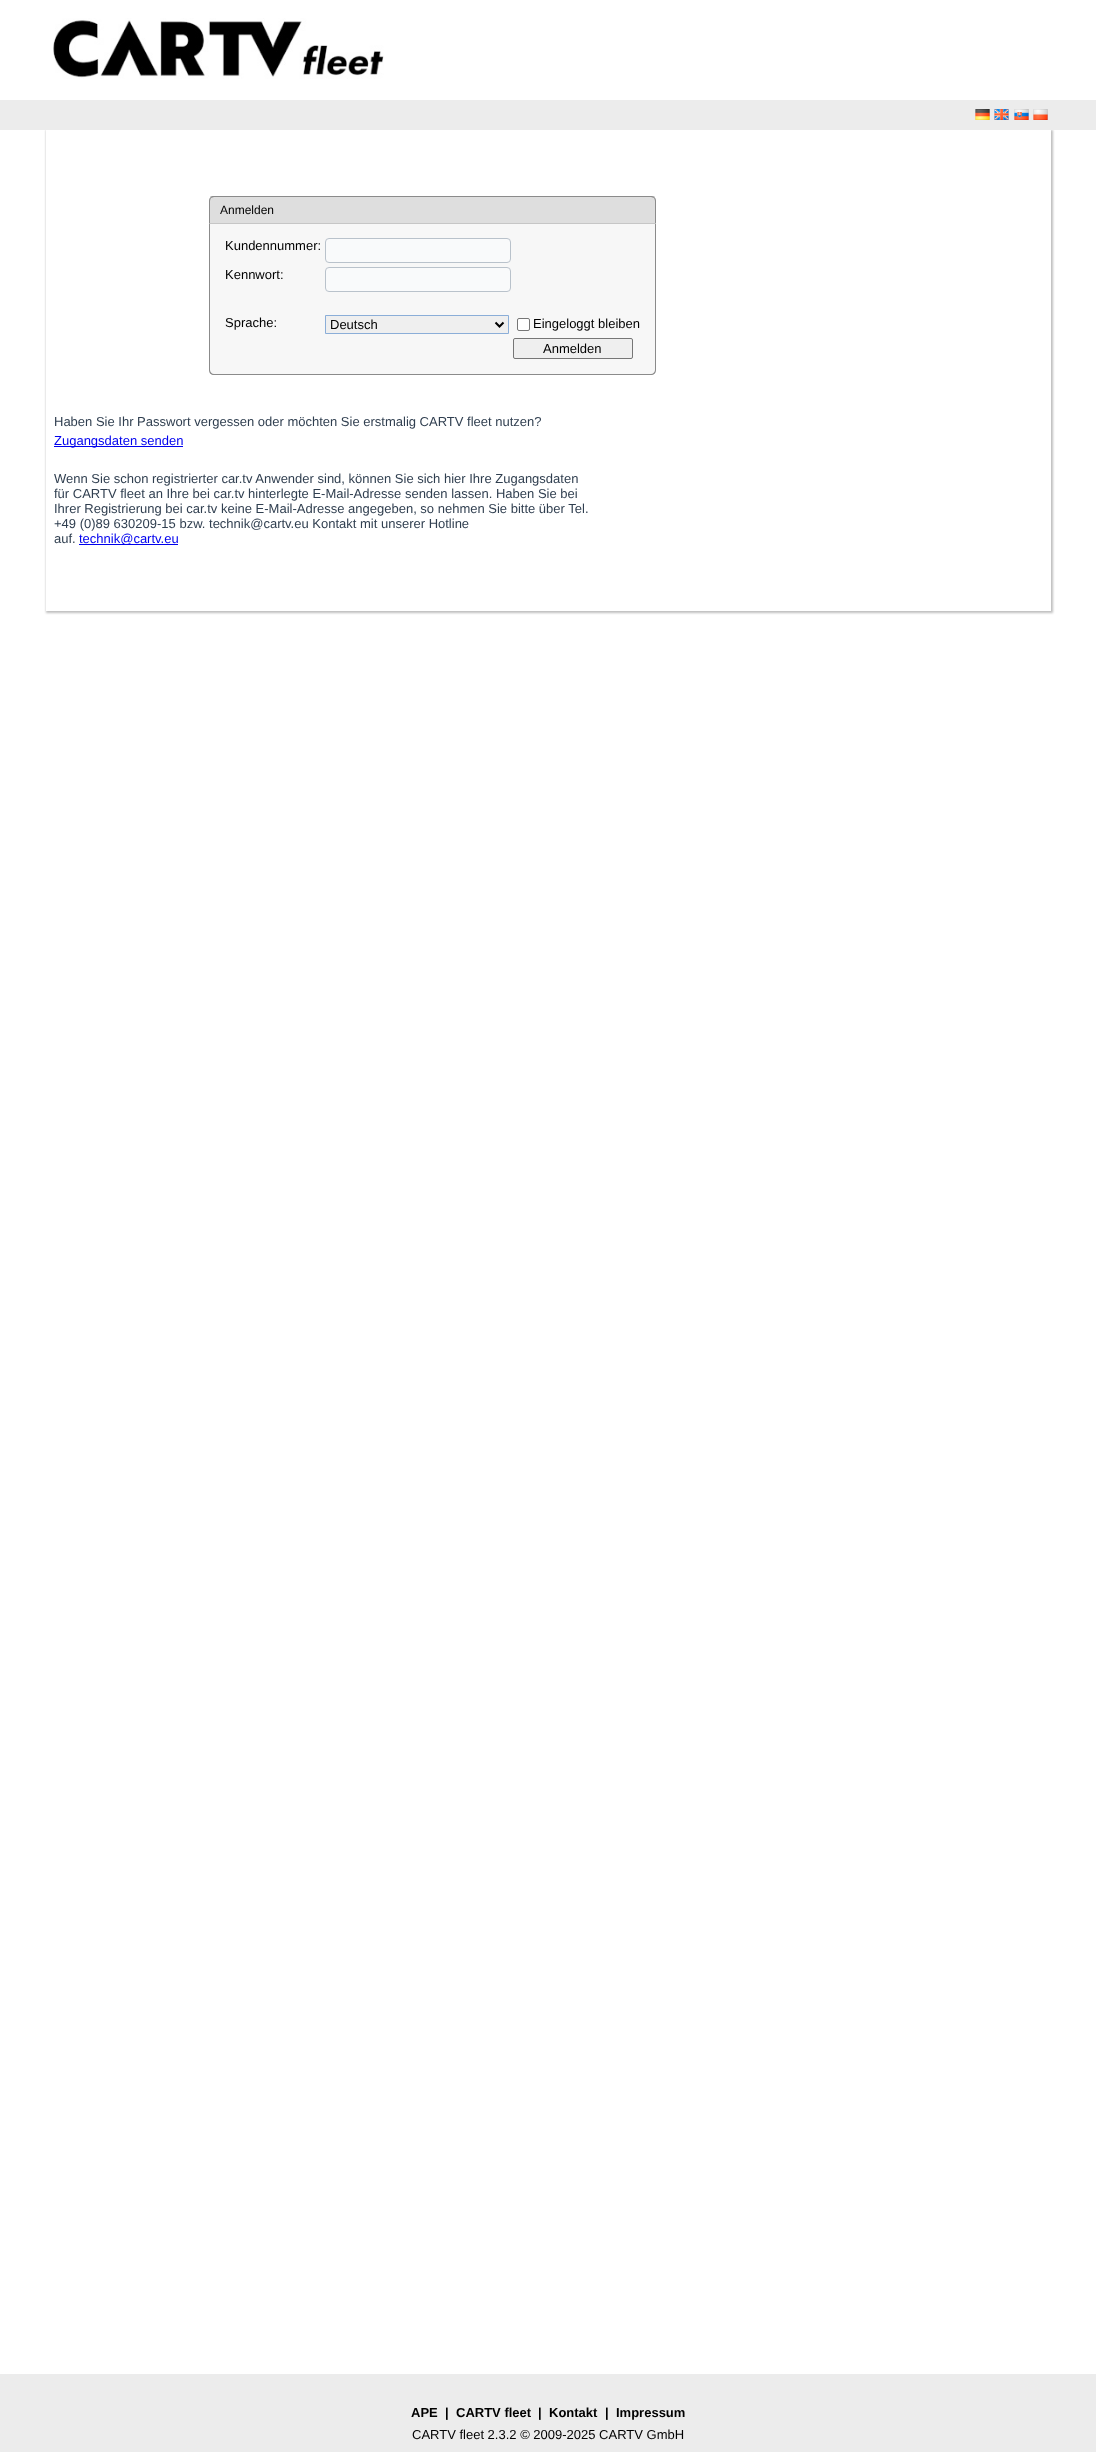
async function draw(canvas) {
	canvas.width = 1096;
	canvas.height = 2452;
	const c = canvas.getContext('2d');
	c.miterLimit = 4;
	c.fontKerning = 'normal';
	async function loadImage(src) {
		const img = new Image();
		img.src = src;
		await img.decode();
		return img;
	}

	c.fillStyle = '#fff';
	c.fillRect(0, 0, 1096, 2452);
	c.drawImage(await loadImage('img1.png'), 53, 18, 331, 61);
	c.save();
	c.beginPath();
	c.moveTo(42, 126);
	c.lineTo(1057, 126);
	c.lineTo(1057, 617);
	c.lineTo(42, 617);
	c.closePath();
	c.moveTo(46, 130);
	c.lineTo(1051, 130);
	c.lineTo(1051, 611);
	c.lineTo(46, 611);
	c.closePath();
	c.clip('evenodd');
	c.fillStyle = '#00000040';
	c.filter = 'blur(1px)';
	c.beginPath();
	c.rect(46, 130, 1007, 483);
	c.fill();
	c.filter = 'none';
	c.restore();
	c.fillStyle = '#ececec';
	c.fillRect(0, 100, 1096, 30);
	c.drawImage(await loadImage('img2.png'), 975, 109, 15, 11);
	c.drawImage(await loadImage('img3.png'), 994, 109, 15, 11);
	c.drawImage(await loadImage('img4.png'), 1014, 109, 15, 11);
	c.drawImage(await loadImage('img5.png'), 1033, 109, 15, 11);
	c.fillStyle = '#dedede';
	c.beginPath();
	c.roundRect(209, 196, 447, 28, [5, 5, 0, 0]);
	c.fill();
	c.fillStyle = '#8b8b8b';
	c.beginPath();
	c.moveTo(214, 196);
	c.bezierCurveTo(212, 196, 211, 196, 210, 197);
	c.lineTo(211, 198);
	c.lineTo(214, 197);
	c.lineTo(651, 197);
	c.lineTo(654, 198);
	c.lineTo(655, 197);
	c.bezierCurveTo(654, 196, 652, 196, 651, 196);
	c.closePath();
	c.fill();
	c.beginPath();
	c.moveTo(656, 224);
	c.lineTo(656, 201);
	c.bezierCurveTo(656, 199.5, 655.5, 198, 654.5, 197.5);
	c.lineTo(654, 198);
	c.bezierCurveTo(654.5, 199, 655, 200, 655, 201);
	c.lineTo(655, 223);
	c.closePath();
	c.fill();
	c.fillStyle = '#c6c6c6';
	c.beginPath();
	c.moveTo(656, 224);
	c.lineTo(655, 223);
	c.lineTo(210, 223);
	c.lineTo(209, 224);
	c.closePath();
	c.fill();
	c.fillStyle = '#8b8b8b';
	c.beginPath();
	c.moveTo(209, 224);
	c.lineTo(210, 223);
	c.lineTo(210, 201);
	c.bezierCurveTo(210, 200, 210.5, 199, 211, 198);
	c.lineTo(210.5, 197.5);
	c.bezierCurveTo(209.5, 198, 209, 199.5, 209, 201);
	c.closePath();
	c.fill();
	c.font = '12px Liberation Sans';
	c.fillStyle = '#000';
	c.fillText('Anmelden', 220, 214);
	c.fillStyle = '#f7f7f7';
	c.beginPath();
	c.roundRect(209, 224, 447, 151, [0, 0, 5, 5]);
	c.fill();
	c.fillStyle = '#8b8b8b';
	c.beginPath();
	c.moveTo(209, 224);
	c.lineTo(656, 224);
	c.lineTo(656, 370);
	c.bezierCurveTo(656, 373, 654, 375, 651, 375);
	c.lineTo(214, 375);
	c.bezierCurveTo(211, 375, 209, 373, 209, 370);
	c.closePath();
	c.moveTo(210, 224);
	c.lineTo(655, 224);
	c.lineTo(655, 370);
	c.bezierCurveTo(655, 372, 653, 374, 651, 374);
	c.lineTo(214, 374);
	c.bezierCurveTo(212, 374, 210, 372, 210, 370);
	c.closePath();
	c.fill('evenodd');
	c.font = '13px Liberation Sans';
	c.fillStyle = '#000';
	c.fillText('Kundennummer:', 225, 250);
	c.fillStyle = '#f9fafb';
	c.beginPath();
	c.roundRect(325.5, 238.5, 185, 24, 3.5);
	c.fill();
	c.strokeStyle = '#b9c2cb';
	c.stroke();
	c.fillStyle = '#000';
	c.fillText('Kennwort:', 225, 279);
	c.fillStyle = '#f9fafb';
	c.beginPath();
	c.roundRect(325.5, 267.5, 185, 24, 3.5);
	c.fill();
	c.stroke();
	c.fillStyle = '#000';
	c.fillText('Sprache:', 225, 327);
	c.fillStyle = '#efefef';
	c.beginPath();
	c.rect(325.5, 315.5, 183, 18);
	c.fill();
	c.strokeStyle = '#8baed8';
	c.stroke();
	c.beginPath();
	c.moveTo(495.5, 322.5);
	c.lineTo(499.5, 326.5);
	c.lineTo(503.5, 322.5);
	c.strokeStyle = '#000';
	c.lineWidth = 2;
	c.stroke();
	c.fillStyle = '#000';
	c.fillText('Deutsch', 330, 329);
	c.fillStyle = '#fff';
	c.beginPath();
	c.roundRect(517.5, 318.5, 12, 12, 1.5);
	c.fill();
	c.strokeStyle = '#767676';
	c.lineWidth = 1;
	c.stroke();
	c.fillStyle = '#000';
	c.fillText('Eingeloggt bleiben', 533, 328);
	c.fillStyle = '#efefef';
	c.beginPath();
	c.roundRect(513.5, 338.5, 119, 20, 1.5);
	c.fill();
	c.stroke();
	c.fillStyle = '#000';
	c.fillText('Anmelden', 543, 353);
	c.fillStyle = '#303f50';
	c.fillText('Haben Sie Ihr Passwort vergessen oder möchten Sie erstmalig CARTV fleet nutzen?', 54, 426);
	c.fillStyle = '#00e';
	c.fillRect(54, 446, 129, 1);
	c.fillText('Zugangsdaten senden', 54, 445);
	c.fillStyle = '#303f50';
	for (const [text, x, y] of [
		['Wenn Sie schon registrierter car.tv Anwender sind, können Sie sich hier Ihre Zugangsdaten', 54, 483],
		['für CARTV fleet an Ihre bei car.tv hinterlegte E-Mail-Adresse senden lassen. Haben Sie bei', 54, 498],
		['Ihrer Registrierung bei car.tv keine E-Mail-Adresse angegeben, so nehmen Sie bitte über Tel.', 54, 513],
		['+49 (0)89 630209-15 bzw. technik@cartv.eu Kontakt mit unserer Hotline', 54, 528],
		['auf.', 54, 543],
	]) {
		c.fillText(text, x, y);
	}
	c.fillStyle = '#00e';
	c.fillRect(79, 544, 99, 1);
	c.fillText('technik@cartv.eu', 79, 543);
	c.fillStyle = '#ececec';
	c.fillRect(0, 2374, 1096, 78);
	c.font = 'bold 13px Liberation Sans';
	c.fillStyle = '#000';
	for (const [text, x, y] of [
		['APE', 411, 2417],
		['|', 445, 2417],
		['CARTV fleet', 456, 2417],
		['|', 538, 2417],
		['Kontakt', 549, 2417],
		['|', 605, 2417],
		['Impressum', 616, 2417],
	]) {
		c.fillText(text, x, y);
	}
	c.font = '13px Liberation Sans';
	c.fillText('CARTV fleet 2.3.2 © 2009-2025 CARTV GmbH', 412, 2439);
}

draw(document.querySelector('canvas'));
